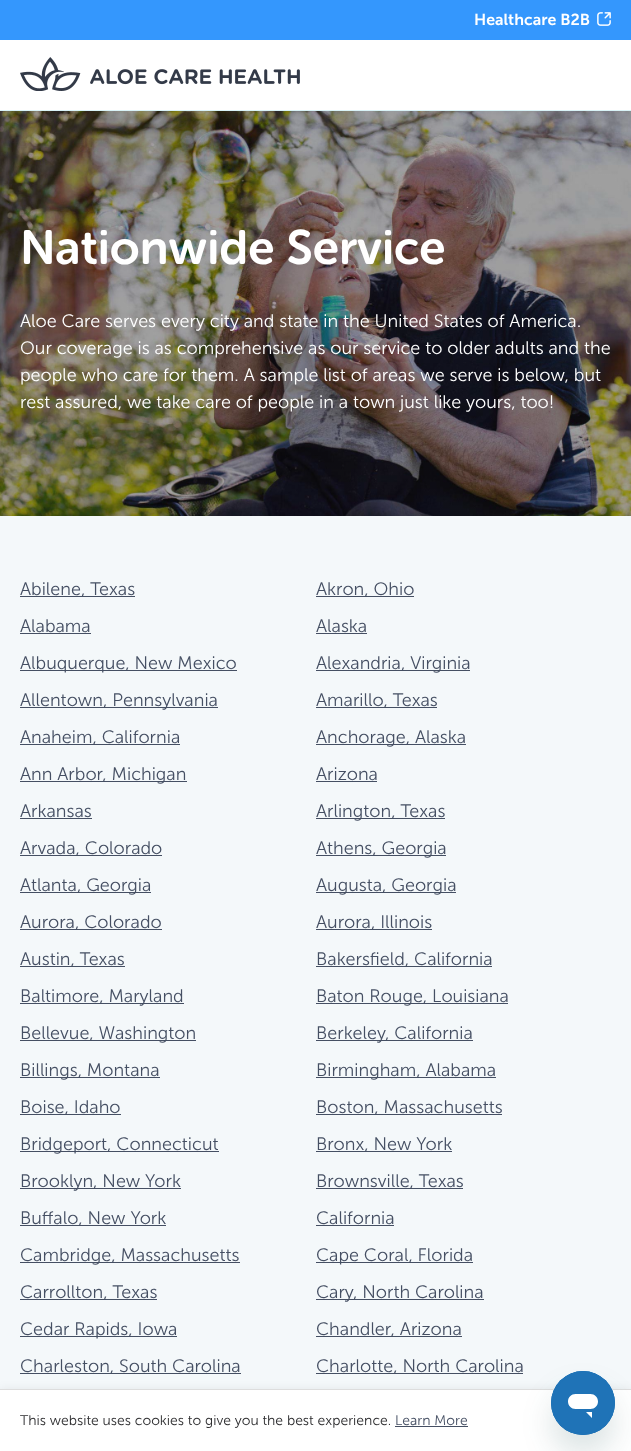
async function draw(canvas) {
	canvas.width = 631;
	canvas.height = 1451;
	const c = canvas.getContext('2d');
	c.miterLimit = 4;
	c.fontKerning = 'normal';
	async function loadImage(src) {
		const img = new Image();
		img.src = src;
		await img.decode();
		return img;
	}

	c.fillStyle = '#3497fd';
	c.fillRect(0, 0, 631, 1451);
	c.font = '600 16px "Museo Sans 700"';
	c.fillStyle = '#fff';
	c.fillText('Healthcare B2B', 474, 25);
	c.drawImage(await loadImage('img1.png'), 597, 12, 14, 14);
	c.fillRect(0, 40, 631, 70);
	c.fillStyle = '#d9f3f7';
	c.fillRect(0, 110, 631, 1);
	c.drawImage(await loadImage('img2.png'), 20, 57, 280, 34);
	c.drawImage(await loadImage('img3.png'), 0, 111, 631, 405);
	c.font = '600 48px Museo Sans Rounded';
	c.fillStyle = '#fff';
	c.fillText('Nationwide Service', 20, 264);
	c.font = '300 18px "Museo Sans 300"';
	for (const [text, x, y] of [
		['Aloe Care serves every city and state in the United States of America.', 20, 327],
		['Our coverage is as comprehensive as our service to older adults and the', 20, 354],
		['people who care for them. A sample list of areas we serve is below, but', 20, 381],
		['rest assured, we take care of people in a town just like yours, too!', 20, 408],
	]) {
		c.fillText(text, x, y);
	}
	c.fillStyle = '#f4f8fa';
	c.fillRect(0, 516, 631, 873);
	c.fillStyle = '#454f63';
	c.fillRect(20, 596, 115, 1);
	c.fillText('Abilene, Texas', 20, 595);
	c.fillRect(316, 596, 98, 1);
	c.fillText('Akron, Ohio', 316, 595);
	c.fillText('Alabama', 20, 632);
	c.fillRect(20, 633, 71, 1);
	c.fillText('Alaska', 316, 632);
	c.fillRect(316, 633, 51, 1);
	c.fillRect(20, 670, 217, 1);
	c.fillText('Albuquerque, New Mexico', 20, 669);
	c.fillRect(316, 670, 154, 1);
	c.fillText('Alexandria, Virginia', 316, 669);
	c.fillRect(20, 707, 198, 1);
	c.fillText('Allentown, Pennsylvania', 20, 706);
	c.fillRect(316, 707, 121, 1);
	c.fillText('Amarillo, Texas', 316, 706);
	c.fillRect(20, 744, 160, 1);
	c.fillText('Anaheim, California', 20, 743);
	c.fillRect(316, 744, 150, 1);
	c.fillText('Anchorage, Alaska', 316, 743);
	c.fillRect(20, 781, 167, 1);
	c.fillText('Ann Arbor, Michigan', 20, 780);
	c.fillText('Arizona', 316, 780);
	c.fillRect(316, 781, 61, 1);
	c.fillText('Arkansas', 20, 817);
	c.fillRect(20, 818, 72, 1);
	c.fillRect(316, 818, 129, 1);
	c.fillText('Arlington, Texas', 316, 817);
	c.fillRect(20, 855, 142, 1);
	c.fillText('Arvada, Colorado', 20, 854);
	c.fillRect(316, 855, 130, 1);
	c.fillText('Athens, Georgia', 316, 854);
	c.fillRect(20, 892, 131, 1);
	c.fillText('Atlanta, Georgia', 20, 891);
	c.fillRect(316, 892, 140, 1);
	c.fillText('Augusta, Georgia', 316, 891);
	c.fillRect(20, 929, 142, 1);
	c.fillText('Aurora, Colorado', 20, 928);
	c.fillRect(316, 929, 116, 1);
	c.fillText('Aurora, Illinois', 316, 928);
	c.fillRect(20, 966, 105, 1);
	c.fillText('Austin, Texas', 20, 965);
	c.fillRect(316, 966, 176, 1);
	c.fillText('Bakersfield, California', 316, 965);
	c.fillRect(20, 1003, 164, 1);
	c.fillText('Baltimore, Maryland', 20, 1002);
	c.fillRect(316, 1003, 192, 1);
	c.fillText('Baton Rouge, Louisiana', 316, 1002);
	c.fillRect(20, 1040, 176, 1);
	c.fillText('Bellevue, Washington', 20, 1039);
	c.fillRect(316, 1040, 69, 1);
	c.fillText('Berkeley', 316, 1039);
	c.fillRect(385, 1040, 88, 1);
	c.fillText(', California', 385, 1039);
	c.fillRect(20, 1077, 140, 1);
	c.fillText('Billings, Montana', 20, 1076);
	c.fillRect(316, 1077, 180, 1);
	c.fillText('Birmingham, Alabama', 316, 1076);
	c.fillRect(20, 1114, 101, 1);
	c.fillText('Boise, Idaho', 20, 1113);
	c.fillRect(316, 1114, 186, 1);
	c.fillText('Boston, Massachusetts', 316, 1113);
	c.fillRect(20, 1151, 199, 1);
	c.fillText('Bridgeport, Connecticut', 20, 1150);
	c.fillRect(316, 1151, 136, 1);
	c.fillText('Bronx, New York', 316, 1150);
	c.fillRect(20, 1188, 161, 1);
	c.fillText('Brooklyn, New York', 20, 1187);
	c.fillRect(316, 1188, 147, 1);
	c.fillText('Brownsville, Texas', 316, 1187);
	c.fillRect(20, 1225, 146, 1);
	c.fillText('Buffalo, New York', 20, 1224);
	c.fillText('California', 316, 1224);
	c.fillRect(316, 1225, 78, 1);
	c.fillRect(20, 1262, 220, 1);
	c.fillText('Cambridge, Massachusetts', 20, 1261);
	c.fillRect(316, 1262, 157, 1);
	c.fillText('Cape Coral, Florida', 316, 1261);
	c.fillRect(20, 1299, 137, 1);
	c.fillText('Carrollton, Texas', 20, 1298);
	c.fillRect(316, 1299, 37, 1);
	c.fillText('Cary', 316, 1298);
	c.fillRect(353, 1299, 131, 1);
	c.fillText(', North Carolina', 353, 1298);
	c.fillRect(20, 1336, 157, 1);
	c.fillText('Cedar Rapids, Iowa', 20, 1335);
	c.fillRect(316, 1336, 146, 1);
	c.fillText('Chandler, Arizona', 316, 1335);
	c.fillRect(20, 1373, 221, 1);
	c.fillText('Charleston, South Carolina', 20, 1372);
	c.fillRect(316, 1373, 207, 1);
	c.fillText('Charlotte, North Carolina', 316, 1372);
	c.fillStyle = '#00000012';
	c.filter = 'blur(5px)';
	c.beginPath();
	c.rect(0, 1389, 631, 62);
	c.fill();
	c.filter = 'none';
	c.fillStyle = '#fff';
	c.fillRect(0, 1390, 631, 61);
	c.fillStyle = '#ddd';
	c.fillRect(0, 1389, 631, 1);
	c.font = '300 14px "Museo Sans 300"';
	c.fillStyle = '#2d2d2f';
	c.fillText('This website uses cookies to give you the best experience.', 20, 1425);
	c.fillStyle = '#454f63';
	c.fillText('Learn More', 395, 1425);
	c.fillRect(395, 1426, 73, 1);
	c.fillStyle = '#17494d26';
	c.filter = 'blur(15px)';
	c.beginPath();
	c.roundRect(551, 1391, 64, 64, 32);
	c.fill();
	c.filter = 'none';
	c.drawImage(await loadImage('img4.png'), 551, 1371, 64, 64);
}

draw(document.querySelector('canvas'));
